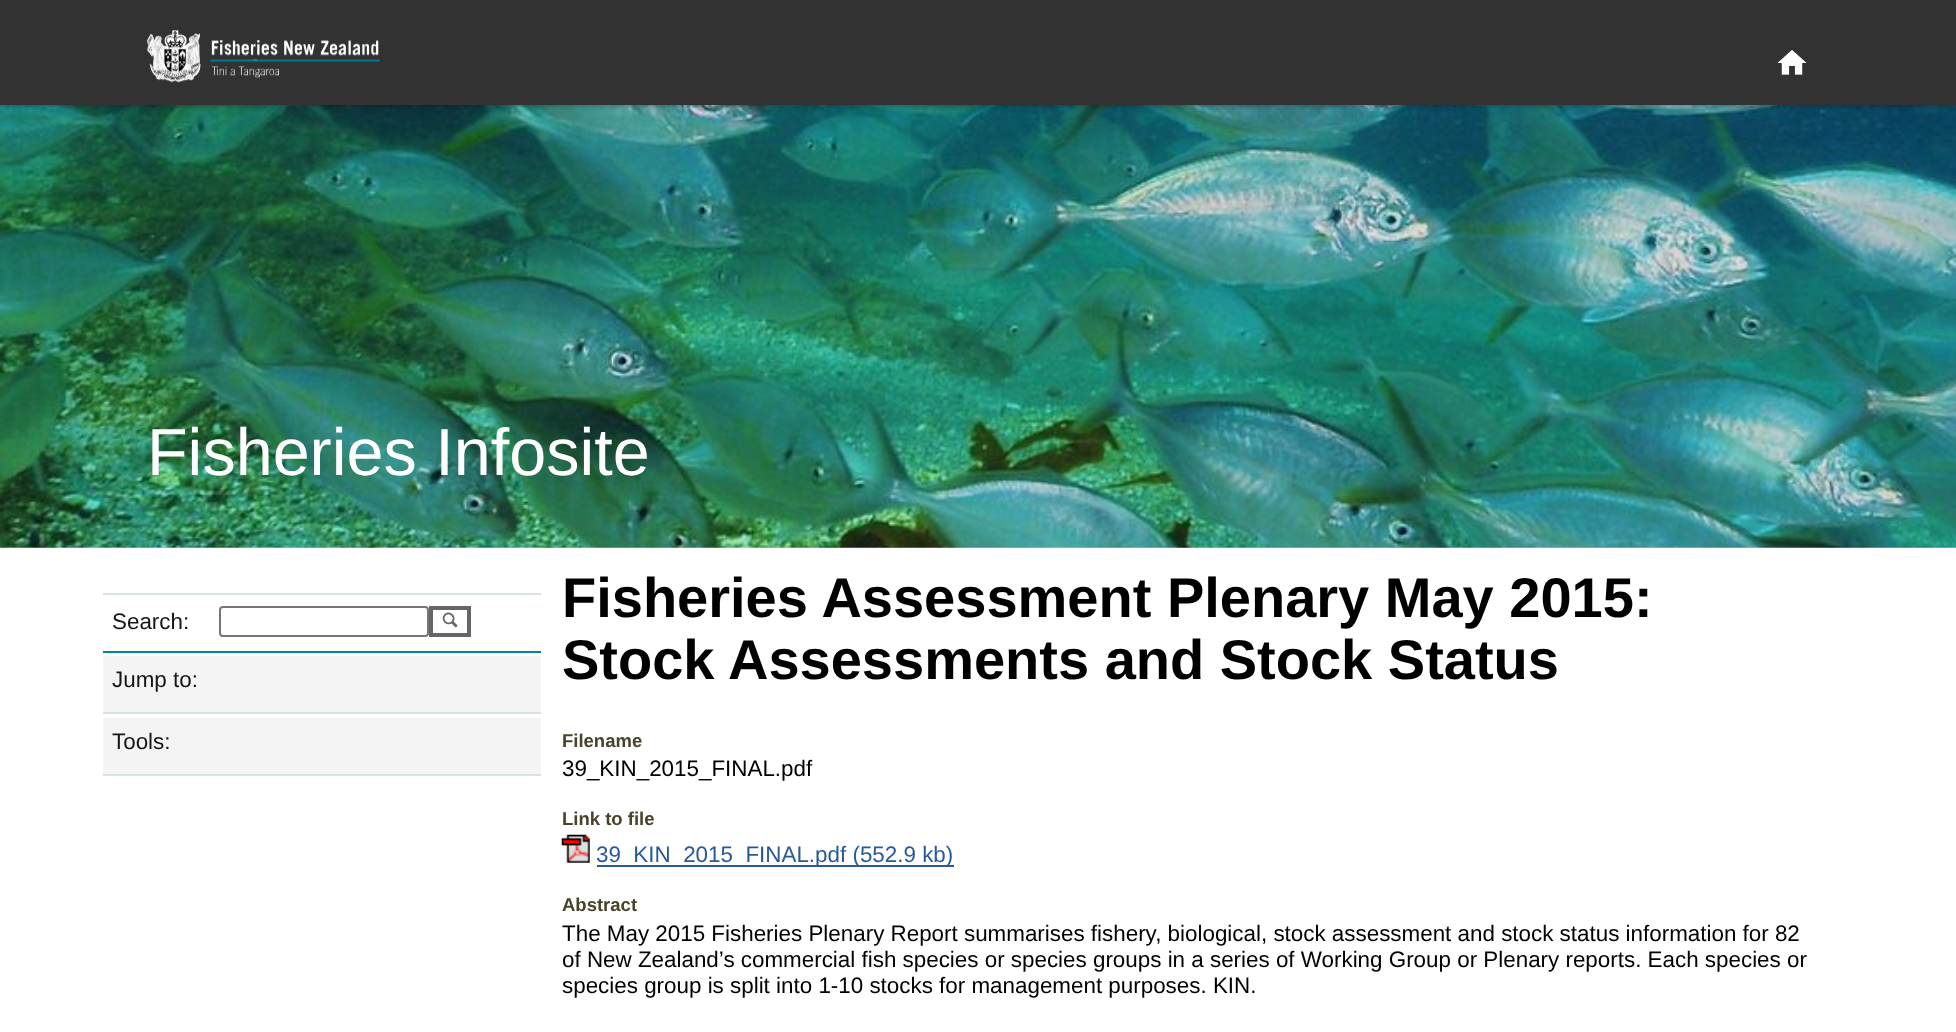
async function draw(canvas) {
	canvas.width = 1956;
	canvas.height = 1032;
	const c = canvas.getContext('2d');
	c.miterLimit = 4;
	c.fontKerning = 'normal';
	async function loadImage(src) {
		const img = new Image();
		img.src = src;
		await img.decode();
		return img;
	}

	c.fillStyle = '#fff';
	c.fillRect(0, 0, 1956, 1032);
	c.drawImage(await loadImage('img3.png'), 0, 105, 1956, 443);
	c.fillStyle = '#00000066';
	c.filter = 'blur(3.5px)';
	c.beginPath();
	c.rect(0, 0, 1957, 105);
	c.fill();
	c.filter = 'none';
	c.fillStyle = '#323232';
	c.fillRect(0, 0, 1956, 105);
	c.drawImage(await loadImage('img1.png'), 147, 30, 233, 53);
	c.drawImage(await loadImage('img2.png'), 1777, 50, 30, 25);
	c.font = '66.5px Liberation Sans';
	c.fillStyle = '#fff';
	c.fillText('Fisheries Infosite', 147, 475);
	c.fillStyle = '#d7e2e7';
	c.fillRect(103, 593, 438, 2);
	c.fillStyle = '#0085a0';
	c.fillRect(103, 651, 438, 2);
	c.font = '22.4px Liberation Sans';
	c.fillStyle = '#151515';
	c.fillText('Search:', 112, 629);
	c.beginPath();
	c.roundRect(220, 607, 208, 29, 3);
	c.strokeStyle = '#767676';
	c.lineWidth = 2;
	c.stroke();
	c.strokeStyle = '#666';
	c.lineWidth = 4;
	c.strokeRect(431, 608, 38, 27);
	c.drawImage(await loadImage('img4.png'), 442, 612, 16, 16);
	c.fillStyle = '#f4f4f4';
	c.fillRect(103, 656, 438, 56);
	c.fillStyle = '#d7e2e7';
	c.fillRect(103, 712, 438, 2);
	c.fillStyle = '#151515';
	c.fillText('Jump to:', 112, 687);
	c.fillStyle = '#f4f4f4';
	c.fillRect(103, 718, 438, 56);
	c.fillStyle = '#d7e2e7';
	c.fillRect(103, 774, 438, 2);
	c.fillStyle = '#151515';
	c.fillText('Tools:', 112, 749);
	c.font = 'bold 56px Liberation Sans';
	c.fillStyle = '#000';
	c.fillText('Fisheries Assessment Plenary May 2015:', 562, 617);
	c.fillText('Stock Assessments and Stock Status', 562, 679);
	c.font = 'bold 18.5px Liberation Sans';
	c.fillStyle = '#49432c';
	c.fillText('Filename', 562, 747);
	c.font = '22.4px Liberation Sans';
	c.fillStyle = '#000';
	c.fillText('39_KIN_2015_FINAL.pdf', 562, 776);
	c.font = 'bold 18.5px Liberation Sans';
	c.fillStyle = '#49432c';
	c.fillText('Link to file', 562, 825);
	c.drawImage(await loadImage('img5.png'), 561, 834, 29, 29);
	c.fillStyle = '#285a9b';
	c.fillRect(597, 865, 357, 2);
	c.font = '22.4px Liberation Sans';
	c.fillText('39_KIN_2015_FINAL.pdf (552.9 kb)', 596, 862);
	c.font = 'bold 18.5px Liberation Sans';
	c.fillStyle = '#49432c';
	c.fillText('Abstract', 562, 911);
	c.font = '22.4px Liberation Sans';
	c.fillStyle = '#000';
	for (const [text, x, y] of [
		['The May 2015 Fisheries Plenary Report summarises fishery, biological, stock assessment and stock status information for 82', 562, 941],
		['of New Zealand’s commercial fish species or species groups in a series of Working Group or Plenary reports. Each species or', 562, 967],
		['species group is split into 1-10 stocks for management purposes. KIN.', 562, 993],
	]) {
		c.fillText(text, x, y);
	}
}

draw(document.querySelector('canvas'));
